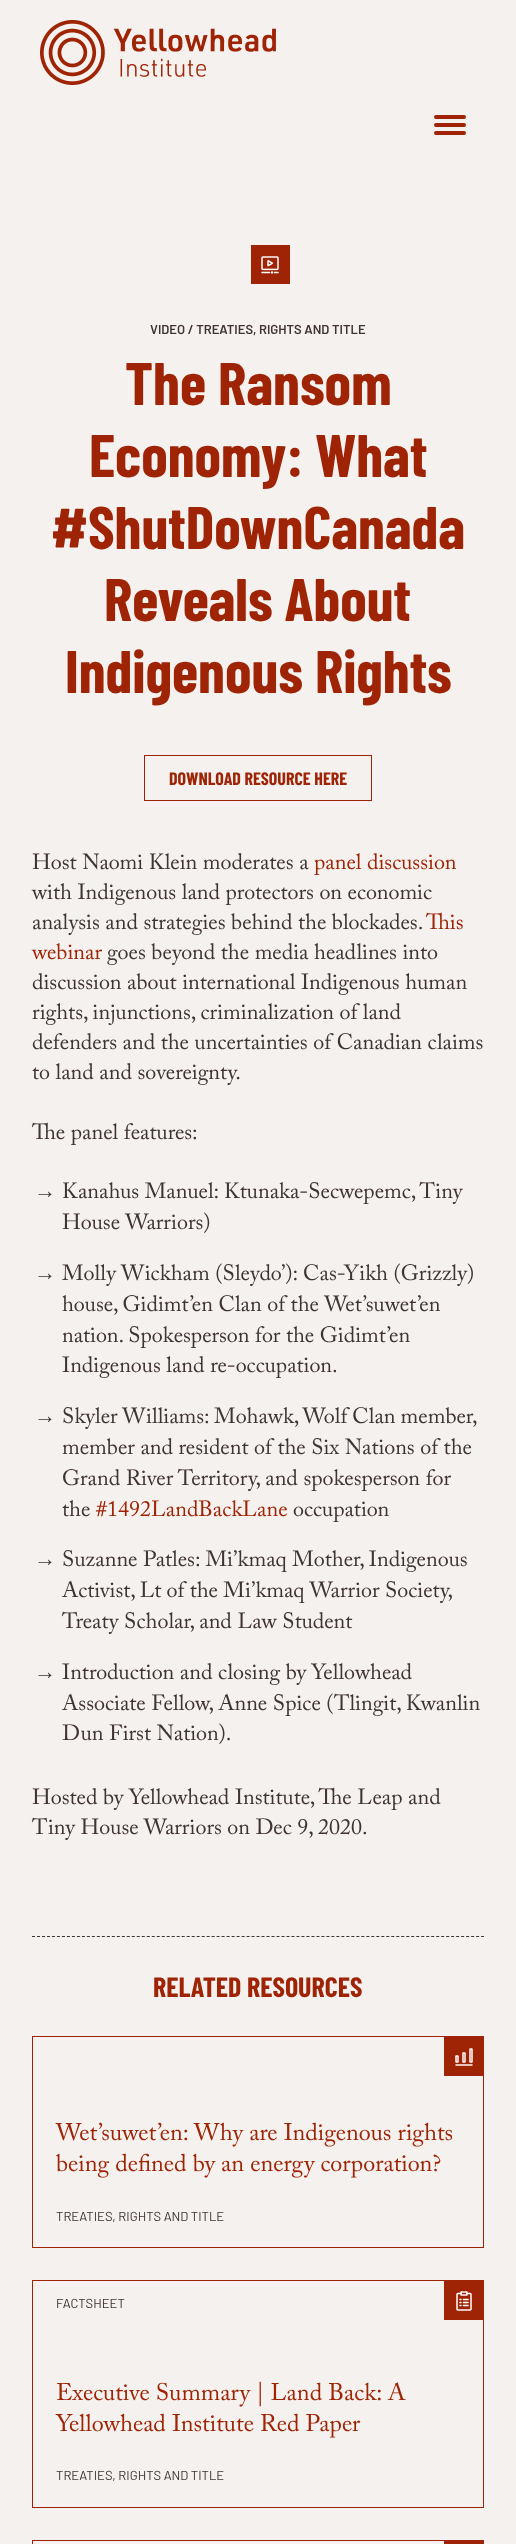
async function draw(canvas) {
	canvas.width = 516;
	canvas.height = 2544;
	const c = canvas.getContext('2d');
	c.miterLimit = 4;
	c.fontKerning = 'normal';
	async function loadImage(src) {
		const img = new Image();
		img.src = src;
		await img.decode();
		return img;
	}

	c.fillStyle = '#f4f1ee';
	c.fillRect(0, 0, 516, 2544);
	c.drawImage(await loadImage('img1.png'), 40, 20, 236, 65);
	c.fillStyle = '#9f2305';
	c.beginPath();
	c.roundRect(434, 115, 32, 4, 2);
	c.fill();
	c.beginPath();
	c.roundRect(434, 123, 32, 4, 2);
	c.fill();
	c.beginPath();
	c.roundRect(434, 131, 32, 4, 2);
	c.fill();
	c.fillRect(251, 245, 39, 39);
	c.drawImage(await loadImage('img2.png'), 261, 256, 18, 18);
	c.font = '600 13px Barlow';
	c.fillStyle = '#3f3333';
	c.fillText('VIDEO / TREATIES, RIGHTS AND TITLE', 150, 334);
	c.font = 'bold 60px Barlow Condensed';
	c.fillStyle = '#9f2305';
	for (const [text, x, y] of [
		['The Ransom', 125, 405],
		['Economy: What', 89, 477],
		['#ShutDownCanada', 51, 549],
		['Reveals About', 104, 621],
		['Indigenous Rights', 65, 693],
	]) {
		c.fillText(text, x, y);
	}
	c.strokeStyle = '#9f2305';
	c.strokeRect(144.5, 755.5, 227, 45);
	c.font = 'bold 18px Barlow Condensed';
	c.fillText('DOWNLOAD RESOURCE HERE', 169, 785);
	c.font = '22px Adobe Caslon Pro';
	c.fillStyle = '#3f3333';
	c.fillText('Host Naomi Klein moderates a', 32, 869);
	c.fillStyle = '#9f2305';
	c.fillText('panel discussion', 314, 869);
	c.fillStyle = '#3f3333';
	c.fillText('with Indigenous land protectors on economic', 32, 899);
	c.fillText('analysis and strategies behind the blockades.', 32, 929);
	c.fillStyle = '#9f2305';
	c.fillText('This', 426, 929);
	c.fillText('webinar', 32, 959);
	c.fillStyle = '#3f3333';
	for (const [text, x, y] of [
		['goes beyond the media headlines into', 107, 959],
		['discussion about international Indigenous human', 32, 989],
		['rights, injunctions, criminalization of land', 32, 1019],
		['defenders and the uncertainties of Canadian claims', 32, 1049],
		['to land and sovereignty.', 32, 1079],
		['The panel features:', 32, 1139],
	]) {
		c.fillText(text, x, y);
	}
	c.font = '22px Liberation Serif';
	c.fillText('→', 34, 1198);
	c.font = '22px Adobe Caslon Pro';
	c.fillText('Kanahus Manuel: Ktunaka-Secwepemc, Tiny', 62, 1198);
	c.fillText('House Warriors)', 62, 1229);
	c.font = '22px Liberation Serif';
	c.fillText('→', 34, 1280);
	c.font = '22px Adobe Caslon Pro';
	for (const [text, x, y] of [
		['Molly Wickham (Sleydo’): Cas-Yikh (Grizzly)', 62, 1280],
		['house, Gidimt’en Clan of the Wet’suwet’en', 62, 1311],
		['nation. Spokesperson for the Gidimt’en', 62, 1342],
		['Indigenous land re-occupation.', 62, 1372],
	]) {
		c.fillText(text, x, y);
	}
	c.font = '22px Liberation Serif';
	c.fillText('→', 34, 1423);
	c.wordSpacing = '-0.5px';
	c.font = '22px Adobe Caslon Pro';
	c.fillText('Skyler Williams: Mohawk, Wolf Clan member,', 62, 1423);
	c.wordSpacing = '0px';
	for (const [text, x, y] of [
		['member and resident of the Six Nations of the', 62, 1454],
		['Grand River Territory, and spokesperson for', 62, 1485],
		['the', 62, 1516],
	]) {
		c.fillText(text, x, y);
	}
	c.fillStyle = '#9f2305';
	c.fillText('#1492LandBackLane', 96, 1516);
	c.fillStyle = '#3f3333';
	c.fillText('occupation', 293, 1516);
	c.font = '22px Liberation Serif';
	c.fillText('→', 34, 1566);
	c.font = '22px Adobe Caslon Pro';
	c.fillText('Suzanne Patles: Mi’kmaq Mother, Indigenous', 62, 1566);
	c.wordSpacing = '-0.25px';
	c.fillText('Activist, Lt of the Mi’kmaq Warrior Society,', 62, 1597);
	c.wordSpacing = '0px';
	c.fillText('Treaty Scholar, and Law Student', 62, 1628);
	c.font = '22px Liberation Serif';
	c.fillText('→', 34, 1679);
	c.font = '22px Adobe Caslon Pro';
	for (const [text, x, y] of [
		['Introduction and closing by Yellowhead', 62, 1679],
		['Associate Fellow, Anne Spice (Tlingit, Kwanlin', 62, 1710],
		['Dun First Nation).', 62, 1740],
		['Hosted by Yellowhead Institute, The Leap and', 32, 1804],
		['Tiny House Warriors on Dec 9, 2020.', 32, 1834],
	]) {
		c.fillText(text, x, y);
	}
	c.beginPath();
	c.moveTo(32, 1936.5);
	c.lineTo(484, 1936.5);
	c.strokeStyle = '#3f3333';
	c.setLineDash([3, 1.99]);
	c.stroke();
	c.font = 'bold 28px Barlow Condensed';
	c.fillStyle = '#9f2305';
	c.fillText('RELATED RESOURCES', 153, 1997);
	c.strokeStyle = '#9f2305';
	c.setLineDash([]);
	c.strokeRect(32.5, 2036.5, 451, 211);
	c.fillRect(444, 2037, 39, 39);
	c.drawImage(await loadImage('img3.png'), 455, 2048, 18, 18);
	c.font = '24px Adobe Caslon Pro';
	c.fillText('Wet’suwet’en: Why are Indigenous rights', 56, 2140);
	c.fillText('being defined by an energy corporation?', 56, 2171);
	c.font = '13px Barlow';
	c.fillStyle = '#3f3333';
	c.fillText('TREATIES, RIGHTS AND TITLE', 56, 2221);
	c.strokeRect(32.5, 2280.5, 451, 227);
	c.fillText('FACTSHEET', 56, 2308);
	c.fillStyle = '#9f2305';
	c.fillRect(444, 2281, 39, 39);
	c.drawImage(await loadImage('img4.png'), 456, 2291, 16, 20);
	c.font = '24px Adobe Caslon Pro';
	c.fillText('Executive Summary | Land Back: A', 56, 2400);
	c.fillText('Yellowhead Institute Red Paper', 56, 2431);
	c.font = '13px Barlow';
	c.fillStyle = '#3f3333';
	c.fillText('TREATIES, RIGHTS AND TITLE', 56, 2480);
	c.strokeRect(32.5, 2540.5, 451, 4);
	c.fillStyle = '#9f2305';
	c.fillRect(444, 2541, 39, 3);
}

draw(document.querySelector('canvas'));
